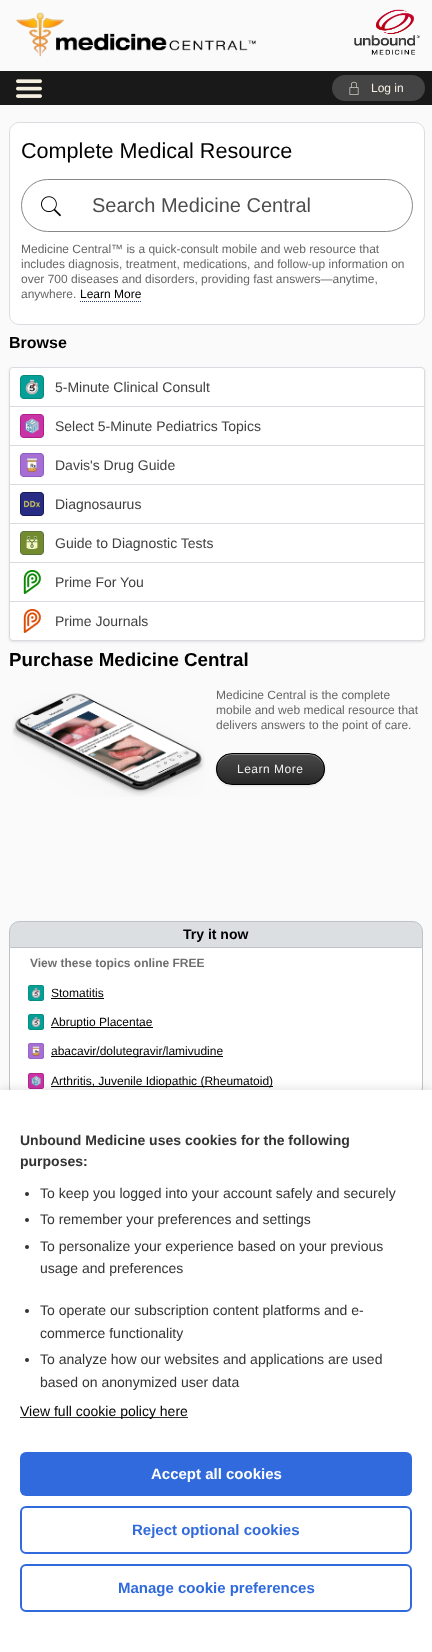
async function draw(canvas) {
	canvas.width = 432;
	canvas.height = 1652;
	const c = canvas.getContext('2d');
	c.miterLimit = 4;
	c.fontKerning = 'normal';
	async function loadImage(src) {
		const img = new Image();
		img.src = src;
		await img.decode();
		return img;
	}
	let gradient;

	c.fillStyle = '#fafafa';
	c.fillRect(0, 0, 432, 1652);
	c.drawImage(await loadImage('img1.png'), 16, 12, 240, 45);
	c.drawImage(await loadImage('img2.png'), 354, 9, 66, 46);
	c.fillStyle = '#191919';
	c.fillRect(0, 71, 432, 34);
	c.drawImage(await loadImage('img3.png'), 16, 79, 26, 19);
	c.fillStyle = '#444';
	c.beginPath();
	c.roundRect(332, 75, 93, 26, 13);
	c.fill();
	c.drawImage(await loadImage('img4.png'), 349, 81, 10, 14);
	c.font = '12px Liberation Sans';
	c.fillStyle = '#f5efe0';
	c.fillText('Log in', 371, 92);
	c.fillStyle = '#fff';
	c.beginPath();
	c.roundRect(9.5, 122.5, 415, 202, 9.5);
	c.fill();
	c.strokeStyle = '#dadee3';
	c.stroke();
	c.font = '21.6px Liberation Sans';
	c.fillStyle = '#000';
	c.fillText('Complete Medical Resource', 21, 158);
	c.beginPath();
	c.roundRect(21.5, 179.5, 391, 52, 26);
	c.strokeStyle = '#878787';
	c.stroke();
	c.drawImage(await loadImage('img5.png'), 41, 196, 20, 21);
	c.font = '20px Liberation Sans';
	c.fillStyle = '#4d4d4d';
	c.fillText('Search Medicine Central', 92, 212);
	c.font = '12px Liberation Sans';
	c.fillStyle = '#666';
	for (const [text, x, y] of [
		['Medicine Central™ is a quick-consult mobile and web resource that', 21, 253],
		['includes diagnosis, treatment, medications, and follow-up information on', 21, 268],
		['over 700 diseases and disorders, providing fast answers—anytime,', 21, 283],
		['anywhere.', 21, 298],
	]) {
		c.fillText(text, x, y);
	}
	c.fillStyle = '#000';
	c.fillText('Learn More', 80, 298);
	c.beginPath();
	c.moveTo(80, 301.5);
	c.lineTo(142, 301.5);
	c.strokeStyle = '#2d3e75';
	c.setLineDash([1, 1]);
	c.stroke();
	c.font = 'bold 16px Liberation Sans';
	c.fillText('Browse', 9, 348);
	c.fillStyle = '#0000001a';
	c.filter = 'blur(1px)';
	c.beginPath();
	c.roundRect(9, 368, 416, 274, 4);
	c.fill();
	c.filter = 'none';
	c.fillStyle = '#fff';
	c.beginPath();
	c.roundRect(9.5, 367.5, 415, 273, 3.5);
	c.fill();
	c.strokeStyle = '#d9dbe0';
	c.setLineDash([]);
	c.stroke();
	c.fillStyle = '#d9dbe0';
	c.fillRect(10, 406, 414, 1);
	c.drawImage(await loadImage('img6.png'), 20, 375, 24, 24);
	c.font = '14px Liberation Sans';
	c.fillStyle = '#3f3f3f';
	c.fillText('5-Minute Clinical Consult', 55, 392);
	c.fillStyle = '#d9dbe0';
	c.fillRect(10, 445, 414, 1);
	c.drawImage(await loadImage('img7.png'), 20, 414, 24, 24);
	c.fillStyle = '#3f3f3f';
	c.fillText('Select 5-Minute Pediatrics Topics', 55, 431);
	c.fillStyle = '#d9dbe0';
	c.fillRect(10, 484, 414, 1);
	c.drawImage(await loadImage('img8.png'), 20, 453, 24, 24);
	c.fillStyle = '#3f3f3f';
	c.fillText('Davis\'s Drug Guide', 55, 470);
	c.fillStyle = '#d9dbe0';
	c.fillRect(10, 523, 414, 1);
	c.drawImage(await loadImage('img9.png'), 20, 492, 24, 24);
	c.fillStyle = '#3f3f3f';
	c.fillText('Diagnosaurus', 55, 509);
	c.fillStyle = '#d9dbe0';
	c.fillRect(10, 562, 414, 1);
	c.drawImage(await loadImage('img10.png'), 20, 531, 24, 24);
	c.fillStyle = '#3f3f3f';
	c.fillText('Guide to Diagnostic Tests', 55, 548);
	c.fillStyle = '#d9dbe0';
	c.fillRect(10, 601, 414, 1);
	c.drawImage(await loadImage('img11.png'), 23, 570, 19, 24);
	c.fillStyle = '#3f3f3f';
	c.fillText('Prime For You', 55, 587);
	c.drawImage(await loadImage('img12.png'), 23, 609, 19, 24);
	c.fillText('Prime Journals', 55, 626);
	c.font = 'bold 18.75px Liberation Sans';
	c.fillStyle = '#000';
	c.fillText('Purchase Medicine Central', 9, 666);
	c.drawImage(await loadImage('img13.png'), 12, 693, 193, 104);
	c.font = '12px Liberation Sans';
	c.fillStyle = '#666';
	for (const [text, x, y] of [
		['Medicine Central is the complete', 216, 699],
		['mobile and web medical resource that', 216, 714],
		['delivers answers to the point of care.', 216, 729],
	]) {
		c.fillText(text, x, y);
	}
	c.fillStyle = '#0000001a';
	c.filter = 'blur(1px)';
	c.beginPath();
	c.roundRect(216, 754, 109, 32, 16);
	c.fill();
	c.filter = 'none';
	c.save();
	c.beginPath();
	c.roundRect(216, 753, 109, 32, 16);
	c.clip();
	gradient = c.createLinearGradient(271, 754, 271, 784);
	gradient.addColorStop(0.01, '#494949');
	gradient.addColorStop(1, '#282828');
	c.fillStyle = gradient;
	c.fillRect(216, 754, 109, 30);
	c.restore();
	c.fillStyle = '#ffffff4d';
	c.beginPath();
	c.moveTo(232, 755);
	c.lineTo(309, 755);
	c.bezierCurveTo(317, 755, 324, 762, 324, 770);
	c.lineTo(324, 769);
	c.bezierCurveTo(324, 761, 317, 754, 309, 754);
	c.lineTo(232, 754);
	c.bezierCurveTo(224, 754, 217, 761, 217, 769);
	c.lineTo(217, 770);
	c.bezierCurveTo(217, 762, 224, 755, 232, 755);
	c.closePath();
	c.fill();
	c.beginPath();
	c.roundRect(216.5, 753.5, 108, 31, 15.5);
	c.strokeStyle = '#000';
	c.stroke();
	c.letterSpacing = '0.5px';
	c.fillStyle = '#f0f0f0';
	c.fillText('Learn More', 237, 773);
	c.fillStyle = '#fff';
	c.fillRect(9, 921, 414, 169);
	c.fillStyle = '#dbdfe1';
	c.beginPath();
	c.roundRect(9.5, 921.5, 413, 26, [9.5, 9.5, 0, 0]);
	c.fill();
	c.strokeStyle = '#bfc3c8';
	c.stroke();
	c.letterSpacing = '0px';
	c.font = 'bold 14px Liberation Sans';
	c.fillStyle = '#000';
	c.fillText('Try it now', 183, 939);
	c.fillStyle = '#bfc3c8';
	c.beginPath();
	c.moveTo(9, 948);
	c.lineTo(423, 948);
	c.lineTo(423, 1087);
	c.bezierCurveTo(423, 1093, 419, 1097, 413, 1097);
	c.lineTo(19, 1097);
	c.bezierCurveTo(13, 1097, 9, 1093, 9, 1087);
	c.closePath();
	c.moveTo(10, 948);
	c.lineTo(422, 948);
	c.lineTo(422, 1087);
	c.bezierCurveTo(422, 1092, 418, 1096, 413, 1096);
	c.lineTo(19, 1096);
	c.bezierCurveTo(14, 1096, 10, 1092, 10, 1087);
	c.closePath();
	c.fill('evenodd');
	c.font = 'bold 12px Liberation Sans';
	c.fillStyle = '#6f6f6f';
	c.fillText('View these topics online FREE', 30, 967);
	c.drawImage(await loadImage('img14.png'), 28, 985, 16, 16);
	c.font = '12px Liberation Sans';
	c.fillStyle = '#000';
	c.fillText('Stomatitis', 51, 997);
	c.fillRect(51, 998, 53, 1);
	c.drawImage(await loadImage('img14.png'), 28, 1014, 16, 16);
	c.fillRect(51, 1027, 102, 1);
	c.fillText('Abruptio Placentae', 51, 1026);
	c.drawImage(await loadImage('img15.png'), 28, 1043, 16, 16);
	c.fillRect(51, 1056, 172, 1);
	c.fillText('abacavir/dolutegravir/lamivudine', 51, 1055);
	c.drawImage(await loadImage('img16.png'), 28, 1073, 16, 16);
	c.fillRect(51, 1086, 222, 1);
	c.fillText('Arthritis, Juvenile Idiopathic (Rheumatoid)', 51, 1085);
	c.fillStyle = '#0000001a';
	c.filter = 'blur(5px)';
	c.beginPath();
	c.rect(0, 1088, 432, 562);
	c.fill();
	c.filter = 'none';
	c.fillStyle = '#fff';
	c.fillRect(0, 1090, 432, 562);
	c.font = 'bold 14px Liberation Sans';
	c.fillStyle = '#333';
	c.fillText('Unbound Medicine uses cookies for the following', 20, 1145);
	c.fillText('purposes:', 20, 1166);
	c.beginPath();
	c.arc(27, 1194, 2, 0, 2 * Math.PI);
	c.fill();
	c.font = '14px Liberation Sans';
	c.fillText('To keep you logged into your account safely and securely', 40, 1198);
	c.beginPath();
	c.arc(27, 1220, 2, 0, 2 * Math.PI);
	c.fill();
	c.fillText('To remember your preferences and settings', 40, 1224);
	c.beginPath();
	c.arc(27, 1247, 2, 0, 2 * Math.PI);
	c.fill();
	c.fillText('To personalize your experience based on your previous', 40, 1251);
	c.fillText('usage and preferences', 40, 1273);
	c.beginPath();
	c.arc(27, 1311, 2, 0, 2 * Math.PI);
	c.fill();
	c.fillText('To operate our subscription content platforms and e-', 40, 1315);
	c.fillText('commerce functionality', 40, 1338);
	c.beginPath();
	c.arc(27, 1360, 2, 0, 2 * Math.PI);
	c.fill();
	c.fillText('To analyze how our websites and applications are used', 40, 1364);
	c.fillText('based on anonymized user data', 40, 1387);
	c.fillRect(20, 1417, 168, 1);
	c.fillStyle = '#000';
	c.fillText('View full cookie policy here', 20, 1416);
	c.fillStyle = '#306adc';
	c.beginPath();
	c.roundRect(20, 1452, 392, 44, 6);
	c.fill();
	c.font = 'bold 15px Liberation Sans';
	c.fillStyle = '#fff';
	c.fillText('Accept all cookies', 151, 1479);
	c.beginPath();
	c.roundRect(21, 1507, 390, 46, 5);
	c.strokeStyle = '#306adc';
	c.lineWidth = 2;
	c.stroke();
	c.fillStyle = '#306adc';
	c.fillText('Reject optional cookies', 132, 1535);
	c.beginPath();
	c.roundRect(21, 1565, 390, 46, 5);
	c.stroke();
	c.fillText('Manage cookie preferences', 118, 1593);
}

draw(document.querySelector('canvas'));
